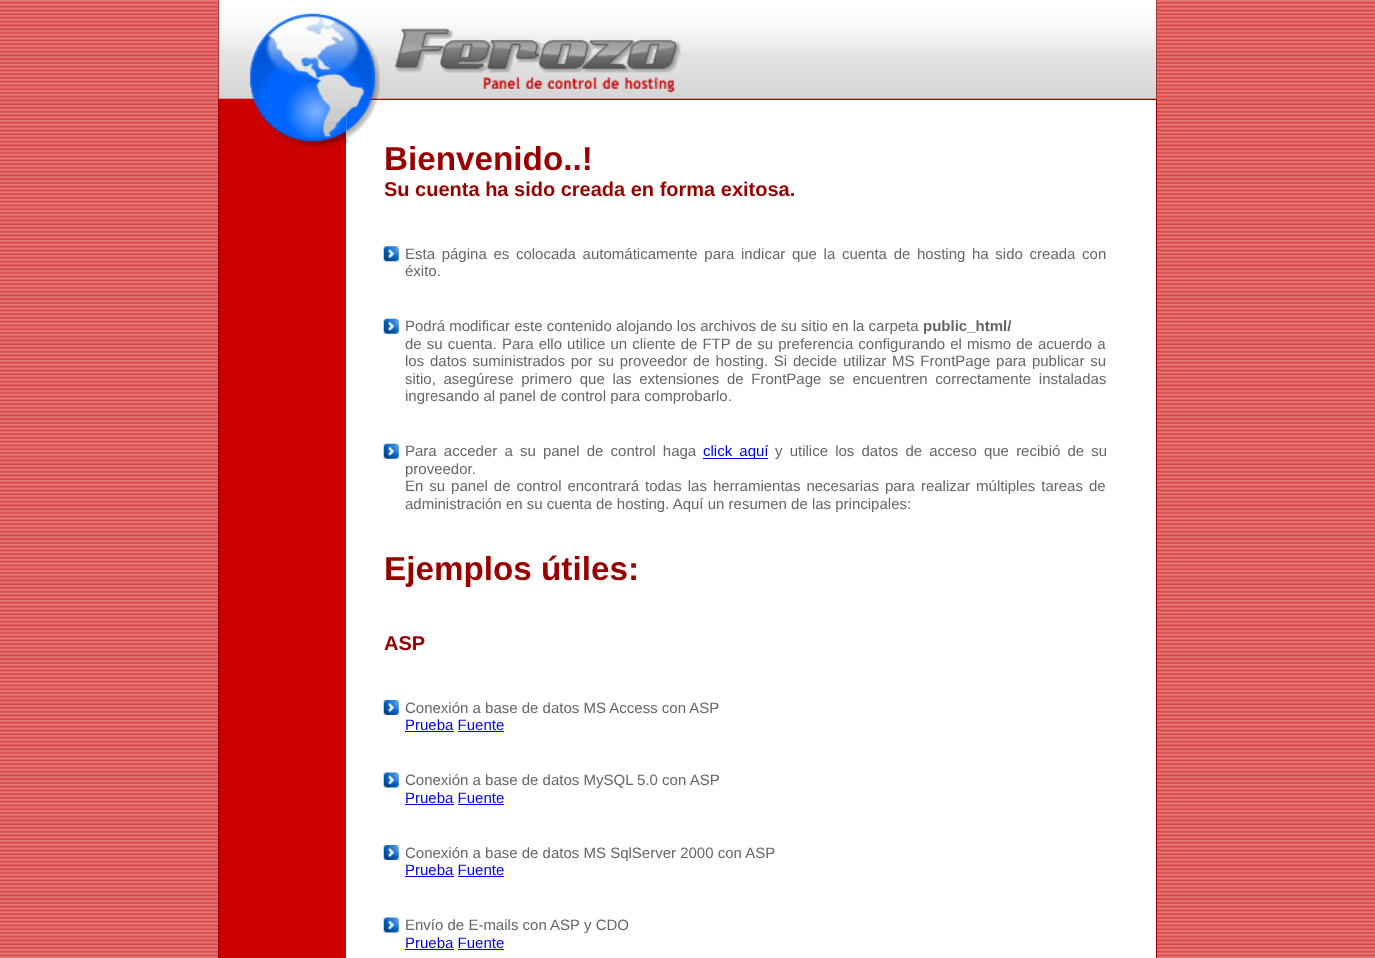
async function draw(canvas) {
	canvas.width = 1375;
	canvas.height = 958;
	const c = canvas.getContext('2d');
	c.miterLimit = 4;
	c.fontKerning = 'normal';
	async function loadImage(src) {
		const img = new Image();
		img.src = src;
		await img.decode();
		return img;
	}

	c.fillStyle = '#fff';
	c.fillRect(0, 0, 1375, 958);
	c.drawImage(await loadImage('img1.png'), 0, 0, 1375, 958);
	c.fillStyle = '#900';
	c.fillRect(1156, 0, 1, 958);
	c.fillRect(218, 0, 1, 958);
	c.drawImage(await loadImage('img2.png'), 218, 0, 939, 100);
	c.drawImage(await loadImage('img3.png'), 249, 13, 131, 87);
	c.drawImage(await loadImage('img4.png'), 393, 28, 289, 65);
	c.fillStyle = '#fff';
	c.fillRect(346, 100, 810, 858);
	c.fillStyle = '#c00';
	c.fillRect(219, 100, 127, 858);
	c.drawImage(await loadImage('img5.png'), 253, 100, 94, 47);
	c.drawImage(await loadImage('img6.png'), 346, 100, 32, 39);
	c.font = 'bold 33.25px Liberation Sans';
	c.fillStyle = '#900';
	c.fillText('Bienvenido..!', 384, 170);
	c.font = 'bold 20px Liberation Sans';
	c.fillText('Su cuenta ha sido creada en forma exitosa.', 384, 196);
	c.drawImage(await loadImage('img7.png'), 383, 246, 16, 16);
	c.wordSpacing = '2.5px';
	c.font = '15px Liberation Sans';
	c.fillStyle = '#666';
	c.fillText('Esta página es colocada automáticamente para indicar que la cuenta de hosting ha sido creada con', 405, 259);
	c.wordSpacing = '0px';
	c.fillText('éxito.', 405, 276);
	c.drawImage(await loadImage('img8.png'), 383, 318, 16, 16);
	c.fillText('Podrá modificar este contenido alojando los archivos de su sitio en la carpeta', 405, 331);
	c.font = 'bold 15px Liberation Sans';
	c.fillText('public_html/', 923, 331);
	c.wordSpacing = '0.9px';
	c.font = '15px Liberation Sans';
	c.fillText('de su cuenta. Para ello utilice un cliente de FTP de su preferencia configurando el mismo de acuerdo a', 405, 349);
	c.wordSpacing = '1.6px';
	c.fillText('los datos suministrados por su proveedor de hosting. Si decide utilizar MS FrontPage para publicar su', 405, 366);
	c.wordSpacing = '3.5px';
	c.fillText('sitio, asegúrese primero que las extensiones de FrontPage se encuentren correctamente instaladas', 405, 384);
	c.wordSpacing = '0px';
	c.fillText('ingresando al panel de control para comprobarlo.', 405, 401);
	c.drawImage(await loadImage('img8.png'), 383, 443, 16, 16);
	c.wordSpacing = '3px';
	c.fillText('Para acceder a su panel de control haga', 405, 456);
	c.fillStyle = '#00e';
	c.fillRect(703, 458, 65, 1);
	c.fillText('click aquí', 703, 456);
	c.fillStyle = '#666';
	c.fillText('y utilice los datos de acceso que recibió de su', 775, 456);
	c.wordSpacing = '0px';
	c.fillText('proveedor.', 405, 474);
	c.wordSpacing = '1.8px';
	c.fillText('En su panel de control encontrará todas las herramientas necesarias para realizar múltiples tareas de', 405, 491);
	c.wordSpacing = '0px';
	c.fillText('administración en su cuenta de hosting. Aquí un resumen de las principales:', 405, 509);
	c.font = 'bold 33.25px Liberation Sans';
	c.fillStyle = '#900';
	c.fillText('Ejemplos útiles:', 384, 580);
	c.font = 'bold 20px Liberation Sans';
	c.fillText('ASP', 384, 650);
	c.drawImage(await loadImage('img9.png'), 383, 700, 16, 15);
	c.font = '15px Liberation Sans';
	c.fillStyle = '#666';
	c.fillText('Conexión a base de datos MS Access con ASP', 405, 713);
	c.fillStyle = '#00e';
	c.fillText('Prueba Fuente', 405, 730);
	c.fillRect(405, 731, 49, 1);
	c.fillRect(458, 731, 46, 1);
	c.drawImage(await loadImage('img10.png'), 383, 772, 16, 16);
	c.fillStyle = '#666';
	c.fillText('Conexión a base de datos MySQL 5.0 con ASP', 405, 785);
	c.fillStyle = '#00e';
	c.fillText('Prueba Fuente', 405, 803);
	c.fillRect(405, 804, 49, 1);
	c.fillRect(458, 804, 46, 1);
	c.drawImage(await loadImage('img9.png'), 383, 845, 16, 15);
	c.fillStyle = '#666';
	c.fillText('Conexión a base de datos MS SqlServer 2000 con ASP', 405, 858);
	c.fillStyle = '#00e';
	c.fillText('Prueba Fuente', 405, 875);
	c.fillRect(405, 876, 49, 1);
	c.fillRect(458, 876, 46, 1);
	c.drawImage(await loadImage('img11.png'), 383, 917, 16, 16);
	c.fillStyle = '#666';
	c.fillText('Envío de E-mails con ASP y CDO', 405, 930);
	c.fillStyle = '#00e';
	c.fillText('Prueba Fuente', 405, 948);
	c.fillRect(405, 949, 49, 1);
	c.fillRect(458, 949, 46, 1);
}

draw(document.querySelector('canvas'));
